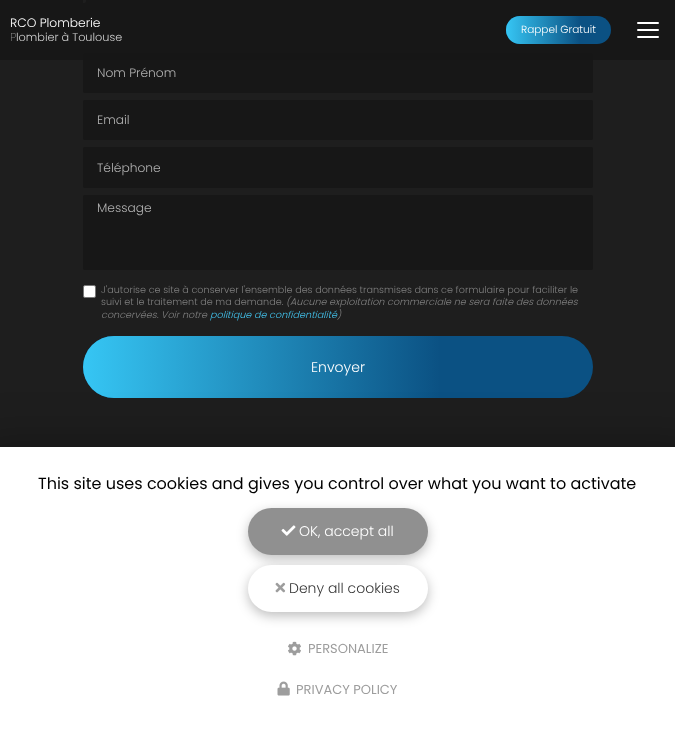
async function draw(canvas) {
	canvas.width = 675;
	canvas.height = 738;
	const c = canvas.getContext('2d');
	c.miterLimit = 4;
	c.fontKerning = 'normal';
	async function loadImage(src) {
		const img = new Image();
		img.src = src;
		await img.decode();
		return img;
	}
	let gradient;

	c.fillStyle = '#1e1e1e';
	c.fillRect(0, 0, 675, 738);
	c.fillStyle = '#1b1b1b';
	c.beginPath();
	c.roundRect(83, -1, 510, 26, 1);
	c.fill();
	c.save();
	c.beginPath();
	c.roundRect(83, -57, 510, 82, 1);
	c.clip();
	c.fillStyle = '#d1d1d1';
	c.beginPath();
	c.arc(84, 1, 2, 0, 2 * Math.PI);
	c.fill();
	c.restore();
	c.fillStyle = '#171717';
	c.beginPath();
	c.roundRect(83, 53, 510, 40, 2);
	c.fill();
	c.fillStyle = '#171717f5';
	c.fillRect(0, 0, 675, 60);
	c.font = '300 12.25px Poppins';
	c.fillStyle = '#fff';
	c.fillText('RCO Plomberie', 10, 27);
	c.font = '100 11.25px Noto Sans';
	c.fillStyle = '#d1d1d1';
	c.fillText('P', 10, 41);
	c.font = '300 11.25px Poppins';
	c.fillText('lombier à Toulouse', 16, 41);
	c.fillStyle = '#0b5183';
	c.beginPath();
	c.roundRect(506, 16, 105, 28, 14);
	c.fill();
	gradient = c.createLinearGradient(506, 30, 611, 30);
	gradient.addColorStop(0, '#36c6f4');
	gradient.addColorStop(0.7, '#36c6f400');
	c.fillStyle = gradient;
	c.beginPath();
	c.roundRect(506, 16, 105, 28, 14);
	c.fill();
	c.font = '300 10.5px Poppins';
	c.fillStyle = '#fff';
	c.fillText('Rappel Gratuit', 521, 33);
	c.beginPath();
	c.roundRect(637, 22, 22, 2, 1);
	c.fill();
	c.beginPath();
	c.roundRect(637, 29, 22, 2, 1);
	c.fill();
	c.beginPath();
	c.roundRect(637, 36, 22, 2, 1);
	c.fill();
	c.font = '300 12.25px Poppins';
	c.fillStyle = '#b0b0b0';
	c.fillText('Nom Prénom', 97, 77);
	c.fillStyle = '#171717';
	c.beginPath();
	c.roundRect(83, 100, 510, 40, 2);
	c.fill();
	c.fillStyle = '#b0b0b0';
	c.fillText('Email', 97, 124);
	c.fillStyle = '#171717';
	c.beginPath();
	c.roundRect(83, 147, 510, 41, 2);
	c.fill();
	c.fillStyle = '#b0b0b0';
	c.fillText('Téléphone', 97, 172);
	c.fillStyle = '#171717';
	c.beginPath();
	c.roundRect(83, 195, 510, 75, 2);
	c.fill();
	c.fillStyle = '#b0b0b0';
	c.fillText('Message', 97, 212);
	c.fillStyle = '#fff';
	c.beginPath();
	c.roundRect(83.5, 285.5, 12, 12, 1.5);
	c.fill();
	c.strokeStyle = '#767676';
	c.stroke();
	c.font = '300 9.65px Poppins';
	c.fillStyle = '#818181';
	c.fillText('J\'autorise ce site à conserver l\'ensemble des données transmises dans ce formulaire pour faciliter le', 101, 293);
	c.fillText('suivi et le traitement de ma demande.', 101, 305);
	c.font = 'italic 300 9.65px Poppins';
	c.fillText('(Aucune exploitation commerciale ne sera faite des données', 286, 305);
	c.fillText('concervées. Voir notre', 101, 318);
	c.fillStyle = '#43c6f1';
	c.fillText('politique de confidentialité', 210, 318);
	c.fillStyle = '#818181';
	c.fillText(')', 337, 318);
	c.fillStyle = '#0b5183';
	c.beginPath();
	c.roundRect(83, 336, 510, 62, 31);
	c.fill();
	gradient = c.createLinearGradient(83, 367, 593, 367);
	gradient.addColorStop(0, '#36c6f4');
	gradient.addColorStop(0.7, '#36c6f400');
	c.fillStyle = gradient;
	c.beginPath();
	c.roundRect(83, 336, 510, 62, 31);
	c.fill();
	c.font = '300 14px Poppins';
	c.fillStyle = '#fff';
	c.fillText('Envoyer', 311, 372);
	c.fillStyle = '#00000057';
	c.filter = 'blur(25px)';
	c.beginPath();
	c.rect(-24, 447, 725, 291);
	c.fill();
	c.filter = 'none';
	c.fillStyle = '#fff';
	c.fillRect(0, 447, 675, 291);
	c.fillStyle = '#00000040';
	c.filter = 'blur(6px)';
	c.beginPath();
	c.roundRect(248, 512, 180, 47, 23.5);
	c.fill();
	c.filter = 'none';
	c.font = '16px Poppins';
	c.fillStyle = '#000';
	c.fillText('This site uses cookies and gives you control over what you want to activate', 38, 489);
	c.fillStyle = '#909090';
	c.beginPath();
	c.roundRect(248, 508, 180, 47, 23.5);
	c.fill();
	c.drawImage(await loadImage('img1.png'), 281, 525, 15, 11);
	c.font = '300 14px Poppins';
	c.fillStyle = '#fff';
	c.fillText('OK, accept all', 299, 536);
	c.fillStyle = '#00000040';
	c.filter = 'blur(6px)';
	c.beginPath();
	c.roundRect(248, 569, 180, 47, 23.5);
	c.fill();
	c.filter = 'none';
	c.fillStyle = '#fff';
	c.beginPath();
	c.roundRect(248, 565, 180, 47, 23.5);
	c.fill();
	c.drawImage(await loadImage('img2.png'), 275, 582, 11, 11);
	c.fillStyle = '#373737';
	c.fillText('Deny all cookies', 289, 593);
	c.drawImage(await loadImage('img3.png'), 288, 641, 13, 15);
	c.font = '13px Poppins';
	c.fillStyle = '#9d9d9d';
	c.fillText('PERSONALIZE', 308, 653);
	c.drawImage(await loadImage('img4.png'), 277, 681, 13, 15);
	c.fillText('PRIVACY POLICY', 296, 694);
}

draw(document.querySelector('canvas'));
